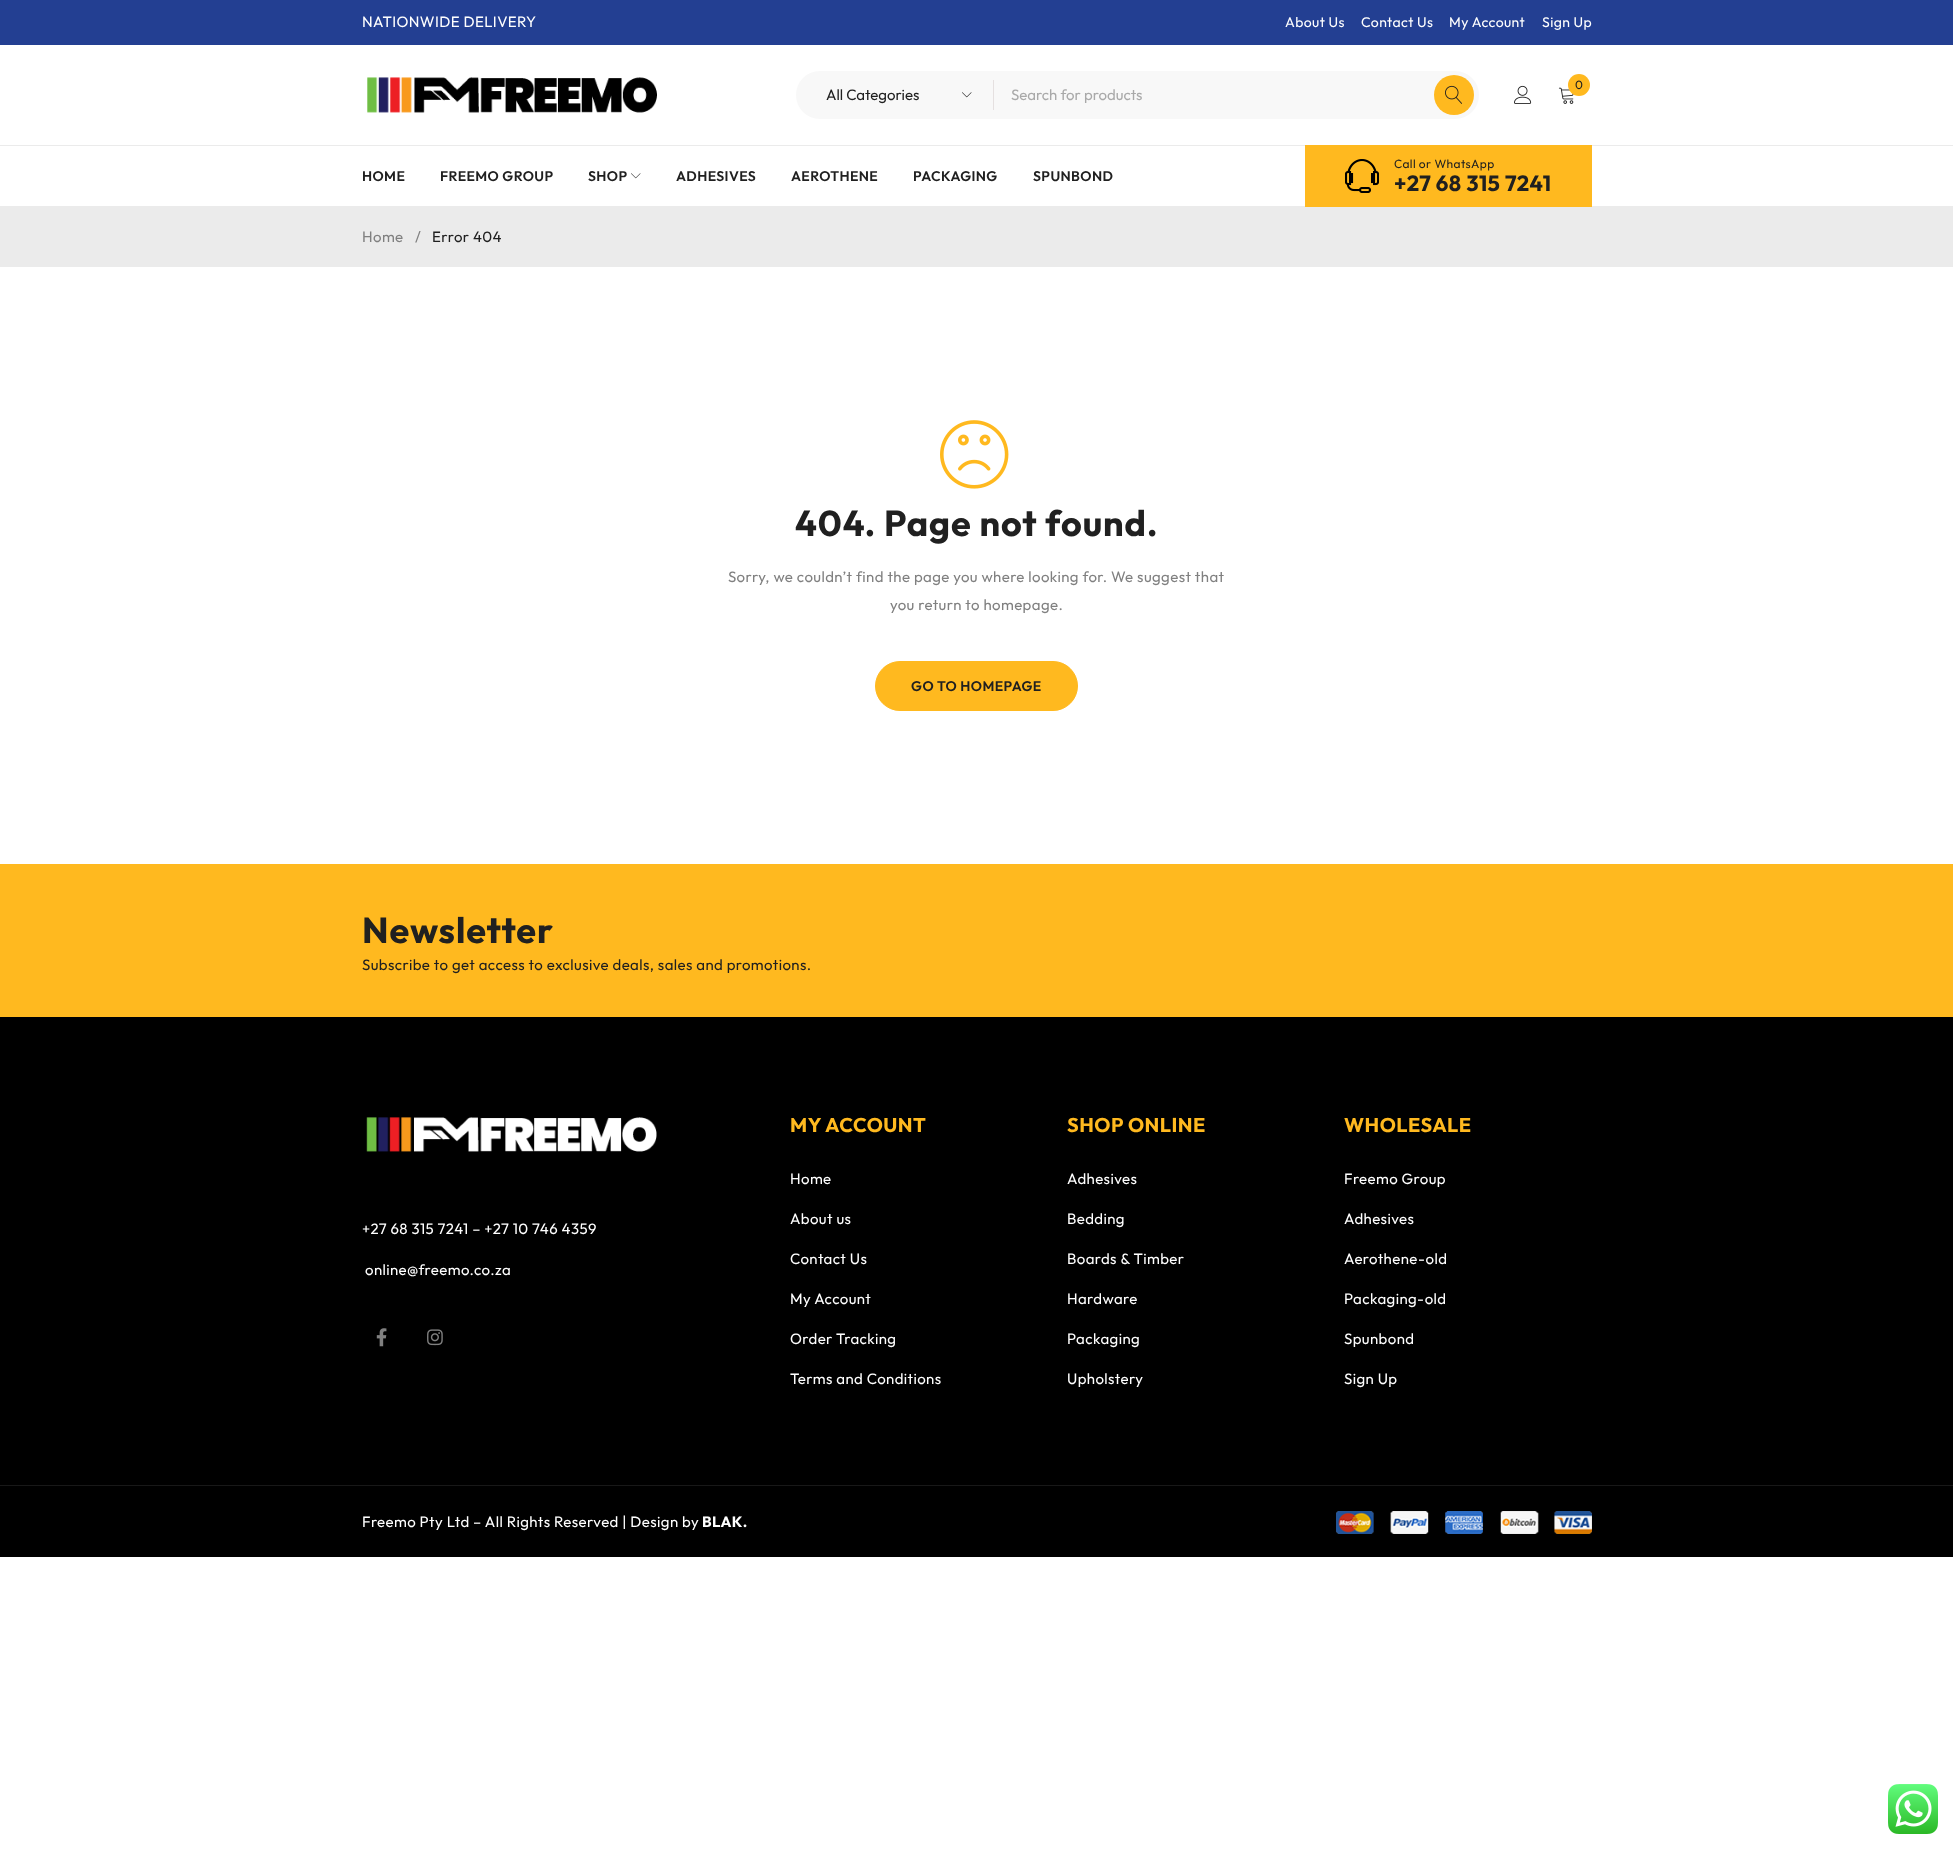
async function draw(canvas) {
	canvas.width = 1953;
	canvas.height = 1849;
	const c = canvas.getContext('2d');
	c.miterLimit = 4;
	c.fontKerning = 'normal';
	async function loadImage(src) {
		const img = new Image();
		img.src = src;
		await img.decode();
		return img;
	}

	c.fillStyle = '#fff';
	c.fillRect(0, 0, 1953, 1849);
	c.fillStyle = '#233f92';
	c.fillRect(0, 0, 1953, 45);
	c.letterSpacing = '0.4px';
	c.font = '15px Outfit';
	c.fillStyle = '#fff';
	c.fillText('NATIONWIDE DELIVERY', 362, 27);
	c.font = '14px Outfit';
	for (const [text, x, y] of [
		['About Us', 1285, 27],
		['Contact Us', 1361, 27],
		['My Account', 1449, 27],
		['Sign Up', 1542, 27],
	]) {
		c.fillText(text, x, y);
	}
	c.fillStyle = '#ebebeb';
	c.fillRect(0, 145, 1953, 1);
	c.drawImage(await loadImage('img1.png'), 367, 77, 290, 36);
	c.drawImage(await loadImage('img2.png'), 1514, 85, 18, 19);
	c.drawImage(await loadImage('img3.png'), 1558, 87, 16, 17);
	c.fillStyle = '#ffb91f';
	c.beginPath();
	c.arc(1579, 85, 11, 0, 2 * Math.PI);
	c.fill();
	c.font = '12px Outfit';
	c.fillStyle = '#202020';
	c.fillText('0', 1575, 89);
	c.fillStyle = '#f8f8f8';
	c.beginPath();
	c.roundRect(796, 71, 683, 48, 24);
	c.fill();
	c.drawImage(await loadImage('img4.png'), 962, 92, 10, 6);
	c.letterSpacing = '0px';
	c.font = '15px Outfit';
	c.fillStyle = '#202020';
	c.fillText('All Categories', 826, 100);
	c.fillStyle = '#e5e0e0';
	c.fillRect(993, 80, 1, 30);
	c.fillStyle = '#a9a9a9';
	c.fillText('Search for products', 1011, 100);
	c.fillStyle = '#ffb91f';
	c.beginPath();
	c.arc(1454, 95, 20, 0, 2 * Math.PI);
	c.fill();
	c.drawImage(await loadImage('img5.png'), 1445, 85, 17, 19);
	c.letterSpacing = '0.4px';
	c.font = '600 14px Outfit';
	c.fillStyle = '#202020';
	for (const [text, x, y] of [
		['HOME', 362, 181],
		['FREEMO GROUP', 440, 181],
		['SHOP', 588, 181],
	]) {
		c.fillText(text, x, y);
	}
	c.drawImage(await loadImage('img6.png'), 631, 173, 10, 6);
	for (const [text, x, y] of [
		['ADHESIVES', 676, 181],
		['AEROTHENE', 791, 181],
		['PACKAGING', 913, 181],
		['SPUNBOND', 1033, 181],
	]) {
		c.fillText(text, x, y);
	}
	c.fillStyle = '#ebebeb';
	c.fillRect(0, 206, 1953, 61);
	c.fillStyle = '#ffb91f';
	c.fillRect(1305, 145, 287, 62);
	c.drawImage(await loadImage('img7.png'), 1345, 159, 34, 34);
	c.font = '12px Outfit';
	c.fillStyle = '#202020';
	c.fillText('Call or WhatsApp', 1394, 168);
	c.font = 'bold 22px Outfit';
	c.fillText('+27 68 315 7241', 1394, 191);
	c.font = '15px Outfit';
	c.fillStyle = '#808080';
	c.fillText('Home', 362, 242);
	c.fillText('/', 415, 242);
	c.fillStyle = '#202020';
	c.fillText('Error 404', 432, 242);
	c.drawImage(await loadImage('img8.png'), 940, 420, 69, 69);
	c.letterSpacing = '0.9px';
	c.font = 'bold 36px Outfit';
	c.fillText('404. Page not found.', 795, 536);
	c.letterSpacing = '0.4px';
	c.font = '15px Outfit';
	c.fillStyle = '#808080';
	c.fillText('Sorry, we couldn’t find the page you where looking for. We suggest that', 728, 582);
	c.fillText('you return to homepage.', 890, 610);
	c.fillStyle = '#ffb91f';
	c.beginPath();
	c.roundRect(875.5, 661.5, 202, 49, 24.5);
	c.fill();
	c.strokeStyle = '#ffb91f';
	c.stroke();
	c.font = '600 14px Outfit';
	c.fillStyle = '#202020';
	c.fillText('GO TO HOMEPAGE', 911, 691);
	c.fillStyle = '#000';
	c.fillRect(0, 1017, 1953, 540);
	c.fillStyle = '#ffb91f';
	c.fillRect(0, 864, 1953, 153);
	c.letterSpacing = '0.9px';
	c.font = 'bold 36px Outfit';
	c.fillStyle = '#202020';
	c.fillText('Newsletter', 362, 943);
	c.letterSpacing = '0.4px';
	c.font = '15px Outfit';
	c.fillText('Subscribe to get access to exclusive deals, sales and promotions.', 362, 970);
	c.drawImage(await loadImage('img9.png'), 366, 1117, 291, 35);
	c.fillStyle = '#fff';
	c.fillText('+27 68 315 7241 – +27 10 746 4359', 362, 1234);
	c.fillText('online@freemo.co.za', 365, 1275);
	c.drawImage(await loadImage('img10.png'), 376, 1328, 11, 19);
	c.drawImage(await loadImage('img11.png'), 427, 1329, 16, 17);
	c.letterSpacing = '0.5px';
	c.font = 'bold 20px Outfit';
	c.fillStyle = '#ffb91f';
	c.fillText('MY ACCOUNT', 790, 1132);
	c.letterSpacing = '0.4px';
	c.font = '15px Outfit';
	c.fillStyle = '#fff';
	for (const [text, x, y] of [
		['Home', 790, 1184],
		['About us', 790, 1224],
		['Contact Us', 790, 1264],
		['My Account', 790, 1304],
		['Order Tracking', 790, 1344],
		['Terms and Conditions', 790, 1384],
	]) {
		c.fillText(text, x, y);
	}
	c.letterSpacing = '0.5px';
	c.font = 'bold 20px Outfit';
	c.fillStyle = '#ffb91f';
	c.fillText('SHOP ONLINE', 1067, 1132);
	c.letterSpacing = '0.4px';
	c.font = '15px Outfit';
	c.fillStyle = '#fff';
	for (const [text, x, y] of [
		['Adhesives', 1067, 1184],
		['Bedding', 1067, 1224],
		['Boards & Timber', 1067, 1264],
		['Hardware', 1067, 1304],
		['Packaging', 1067, 1344],
		['Upholstery', 1067, 1384],
	]) {
		c.fillText(text, x, y);
	}
	c.letterSpacing = '0.5px';
	c.font = 'bold 20px Outfit';
	c.fillStyle = '#ffb91f';
	c.fillText('WHOLESALE', 1344, 1132);
	c.letterSpacing = '0.4px';
	c.font = '15px Outfit';
	c.fillStyle = '#fff';
	for (const [text, x, y] of [
		['Freemo Group', 1344, 1184],
		['Adhesives', 1344, 1224],
		['Aerothene-old', 1344, 1264],
		['Packaging-old', 1344, 1304],
		['Spunbond', 1344, 1344],
		['Sign Up', 1344, 1384],
	]) {
		c.fillText(text, x, y);
	}
	c.fillStyle = '#181818';
	c.fillRect(0, 1485, 1953, 1);
	c.fillStyle = '#fff';
	c.fillText('Freemo Pty Ltd – All Rights Reserved | Design by', 362, 1527);
	c.font = 'bold 15px Outfit';
	c.fillText('BLAK.', 702, 1527);
	c.drawImage(await loadImage('img12.png'), 1336, 1511, 256, 23);
	c.drawImage(await loadImage('img13.png'), 1888, 1784, 50, 50);
}

draw(document.querySelector('canvas'));
